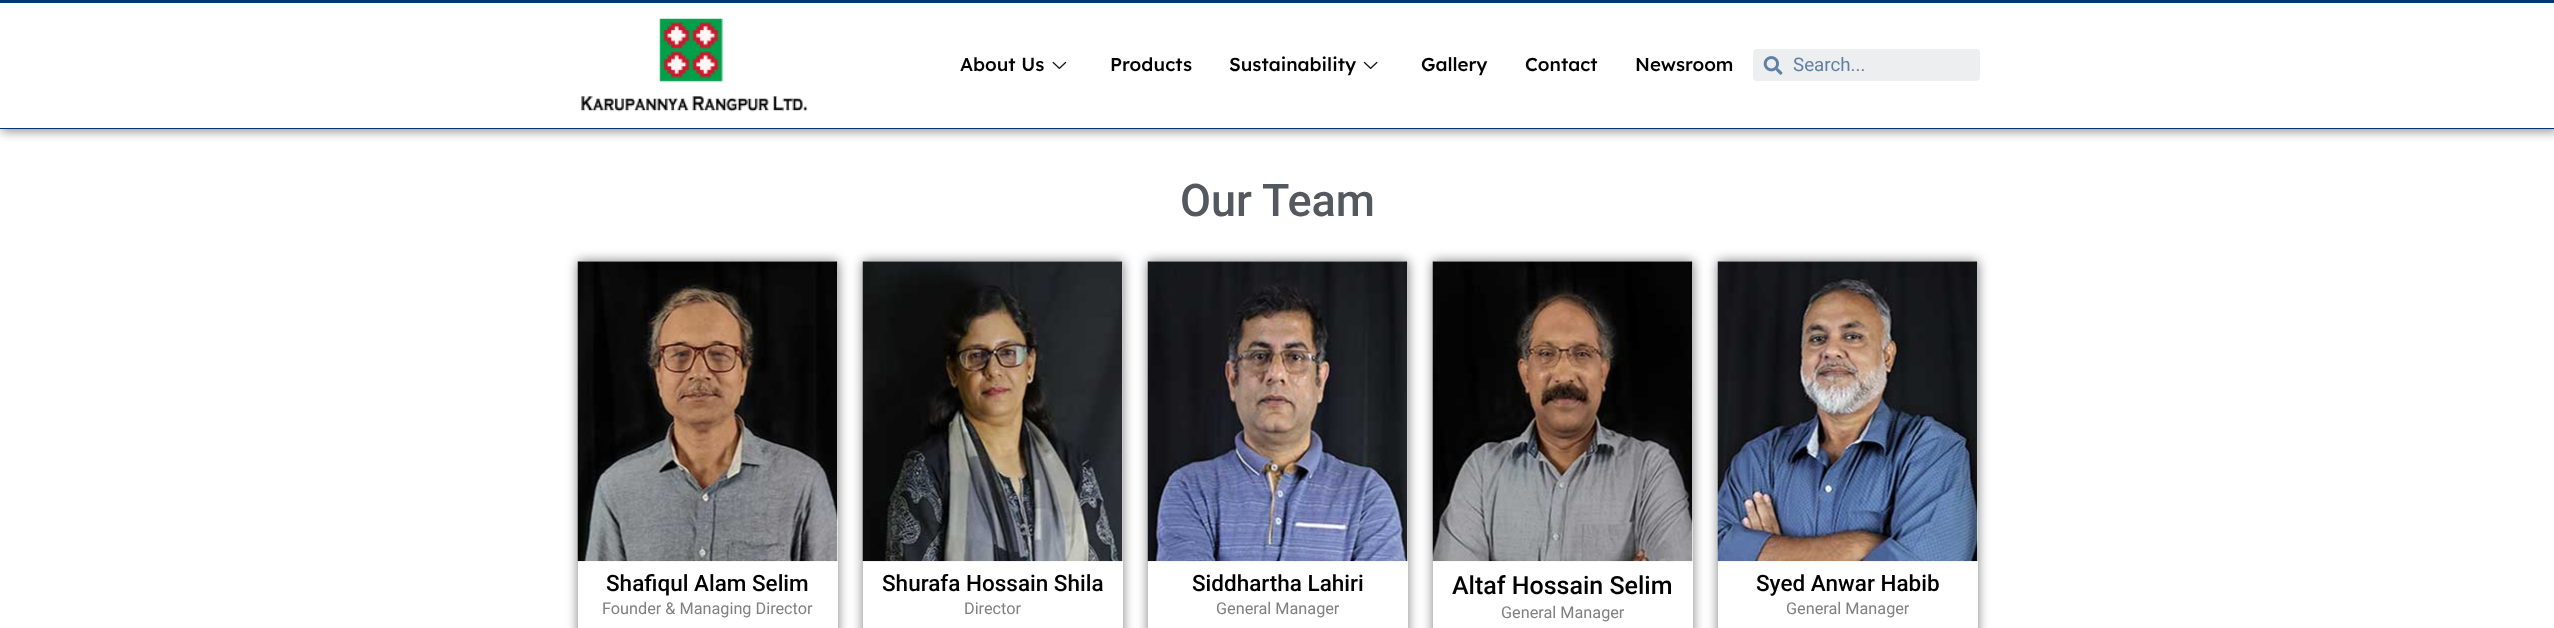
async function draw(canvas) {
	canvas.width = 2554;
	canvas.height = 628;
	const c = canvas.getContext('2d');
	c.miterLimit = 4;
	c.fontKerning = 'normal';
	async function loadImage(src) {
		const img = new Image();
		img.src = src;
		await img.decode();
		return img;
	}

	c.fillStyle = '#fff';
	c.fillRect(0, 0, 2554, 628);
	c.save();
	c.beginPath();
	c.rect(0, 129, 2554, 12);
	c.clip();
	c.fillStyle = '#00000073';
	c.filter = 'blur(6px)';
	c.beginPath();
	c.rect(1, 0, 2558, 131);
	c.fill();
	c.filter = 'none';
	c.restore();
	c.fillStyle = '#013671';
	c.fillRect(0, 0, 2554, 3);
	c.fillRect(0, 128, 2554, 1);
	c.drawImage(await loadImage('img1.png'), 581, 18, 227, 94);
	c.font = '500 18.75px Lexend';
	c.fillStyle = '#000';
	c.fillText('About Us', 960, 71);
	c.drawImage(await loadImage('img2.png'), 1052, 61, 15, 8);
	c.fillText('Products', 1110, 71);
	c.fillText('Sustainability', 1229, 71);
	c.drawImage(await loadImage('img3.png'), 1363, 61, 15, 8);
	for (const [text, x, y] of [
		['Gallery', 1421, 71],
		['Contact', 1525, 71],
		['Newsroom', 1635, 71],
	]) {
		c.fillText(text, x, y);
	}
	c.fillStyle = '#eceeef';
	c.beginPath();
	c.roundRect(1753, 49, 227, 32, 4);
	c.fill();
	c.drawImage(await loadImage('img4.png'), 1763, 56, 20, 19);
	c.font = '18.75px Roboto';
	c.fillStyle = '#5f80a3';
	c.fillText('Search...', 1793, 71);
	c.font = '500 45px Roboto';
	c.fillStyle = '#54595f';
	c.fillText('Our Team', 1180, 216);
	c.fillStyle = '#00000080';
	c.filter = 'blur(6px)';
	c.beginPath();
	c.rect(578, 261, 260, 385);
	c.fill();
	c.filter = 'none';
	c.fillStyle = '#fff';
	c.fillRect(578, 261, 260, 367);
	c.drawImage(await loadImage('img5.png'), 577, 261, 261, 301);
	c.font = '500 22.5px Roboto';
	c.fillStyle = '#000';
	c.fillText('Shafiqul Alam Selim', 606, 591);
	c.font = '16.25px Roboto';
	c.fillStyle = '#808080';
	c.fillText('Founder & Managing Director', 602, 614);
	c.fillStyle = '#00000080';
	c.filter = 'blur(6px)';
	c.beginPath();
	c.rect(863, 261, 260, 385);
	c.fill();
	c.filter = 'none';
	c.fillStyle = '#fff';
	c.fillRect(863, 261, 260, 367);
	c.drawImage(await loadImage('img6.png'), 862, 261, 261, 301);
	c.font = '500 22.5px Roboto';
	c.fillStyle = '#000';
	c.fillText('Shurafa Hossain Shila', 882, 591);
	c.font = '16.25px Roboto';
	c.fillStyle = '#808080';
	c.fillText('Director', 964, 614);
	c.fillStyle = '#00000080';
	c.filter = 'blur(6px)';
	c.beginPath();
	c.rect(1148, 261, 260, 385);
	c.fill();
	c.filter = 'none';
	c.fillStyle = '#fff';
	c.fillRect(1148, 261, 260, 367);
	c.drawImage(await loadImage('img7.png'), 1147, 261, 261, 301);
	c.font = '500 22.5px Roboto';
	c.fillStyle = '#000';
	c.fillText('Siddhartha Lahiri', 1192, 591);
	c.font = '16.25px Roboto';
	c.fillStyle = '#808080';
	c.fillText('General Manager', 1216, 614);
	c.fillStyle = '#00000080';
	c.filter = 'blur(6px)';
	c.beginPath();
	c.rect(1433, 261, 260, 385);
	c.fill();
	c.filter = 'none';
	c.fillStyle = '#fff';
	c.fillRect(1433, 261, 260, 367);
	c.drawImage(await loadImage('img8.png'), 1432, 261, 261, 301);
	c.font = '500 25px Roboto';
	c.fillStyle = '#000';
	c.fillText('Altaf Hossain Selim', 1452, 594);
	c.font = '16.25px Roboto';
	c.fillStyle = '#808080';
	c.fillText('General Manager', 1501, 618);
	c.fillStyle = '#00000080';
	c.filter = 'blur(6px)';
	c.beginPath();
	c.rect(1718, 261, 260, 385);
	c.fill();
	c.filter = 'none';
	c.fillStyle = '#fff';
	c.fillRect(1718, 261, 260, 367);
	c.drawImage(await loadImage('img9.png'), 1717, 261, 261, 301);
	c.font = '500 22.5px Roboto';
	c.fillStyle = '#000';
	c.fillText('Syed Anwar Habib', 1756, 591);
	c.font = '16.25px Roboto';
	c.fillStyle = '#808080';
	c.fillText('General Manager', 1786, 614);
}

draw(document.querySelector('canvas'));
